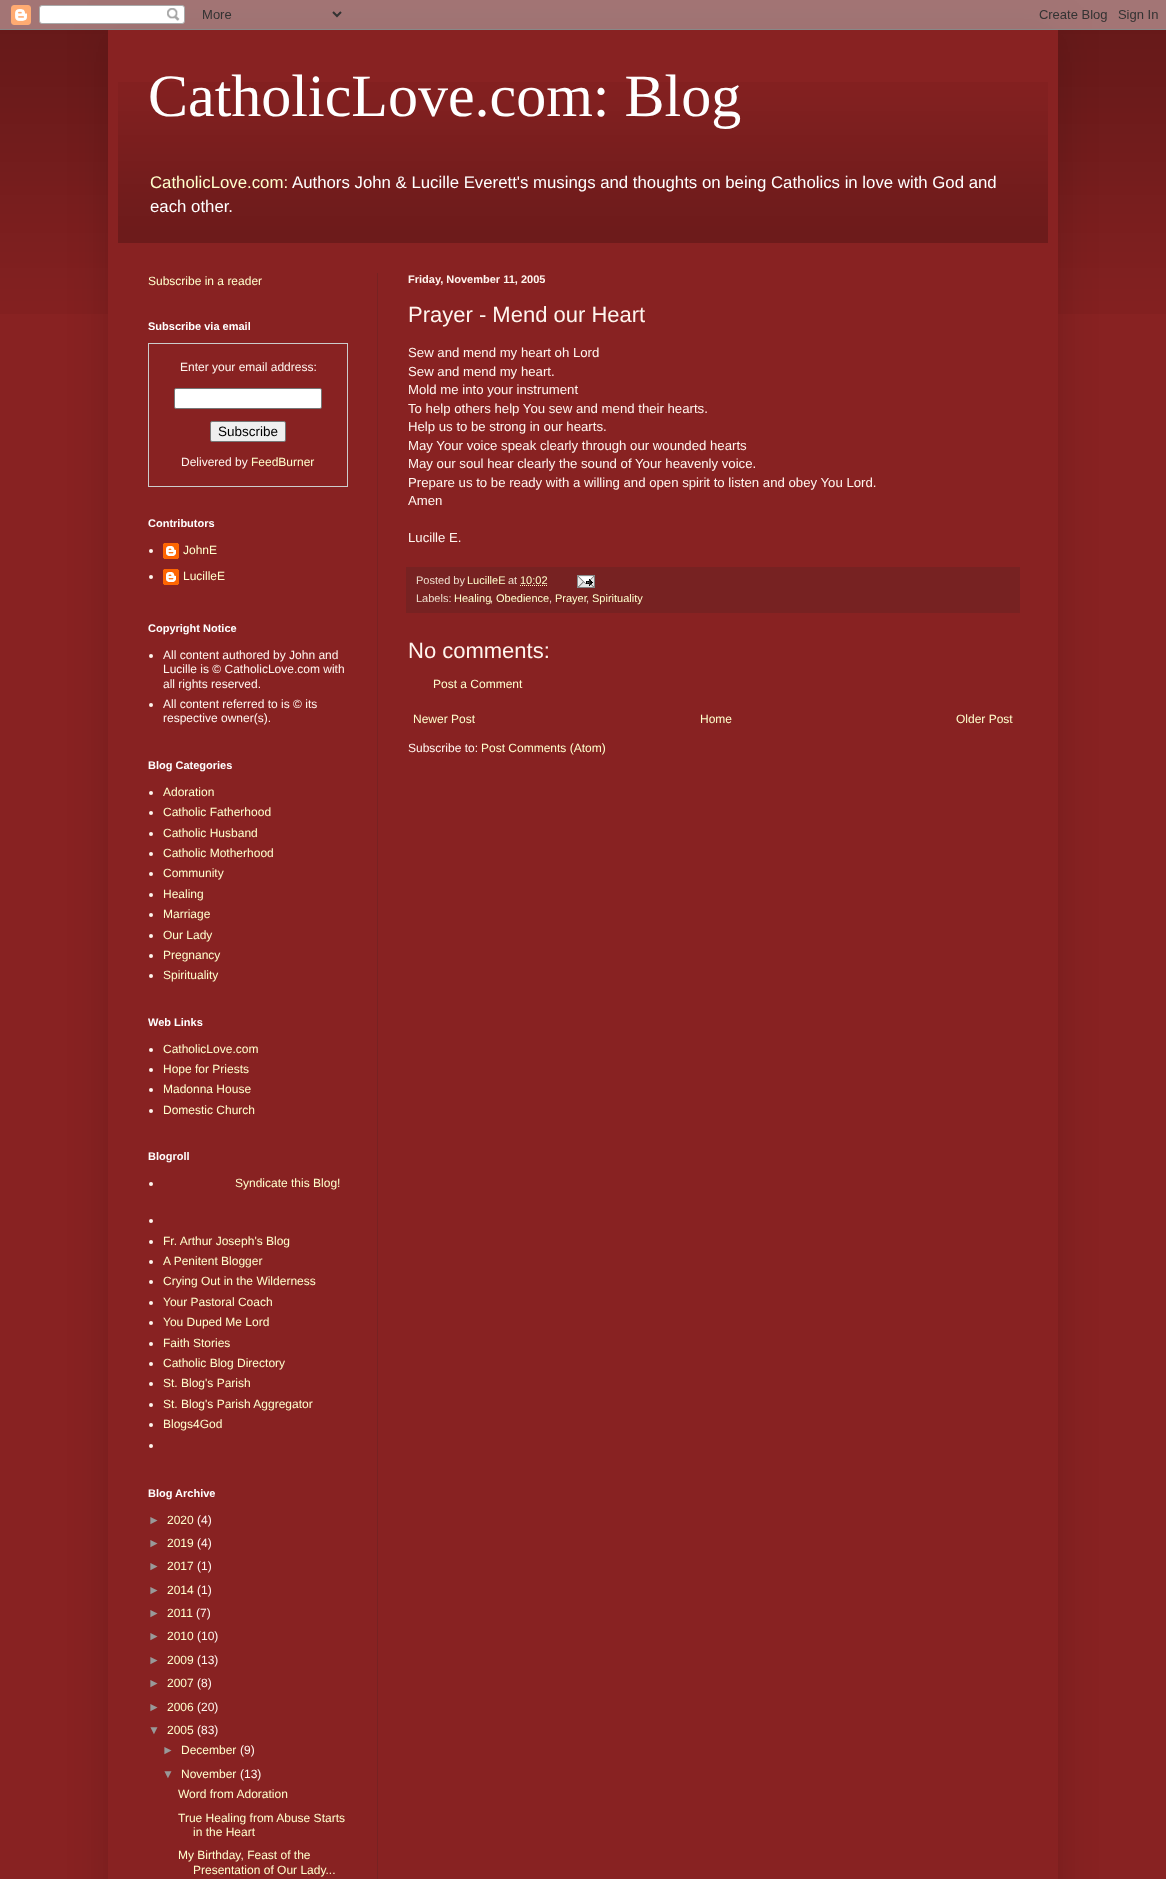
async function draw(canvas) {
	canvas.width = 1166;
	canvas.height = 1879;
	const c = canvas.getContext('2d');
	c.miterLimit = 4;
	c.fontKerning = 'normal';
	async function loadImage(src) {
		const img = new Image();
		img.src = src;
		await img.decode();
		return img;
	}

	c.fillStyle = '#822';
	c.fillRect(0, 0, 1166, 1879);
	c.drawImage(await loadImage('img1.png'), 0, 0, 1166, 314);
	c.fillStyle = '#00000026';
	c.filter = 'blur(20px)';
	c.beginPath();
	c.rect(108, 30, 950, 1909);
	c.fill();
	c.filter = 'none';
	c.drawImage(await loadImage('img2.png'), 0, 0, 1166, 30);
	c.fillStyle = '#822';
	c.fillRect(108, 30, 950, 1849);
	c.drawImage(await loadImage('img3.png'), 118, 82, 930, 161);
	c.font = '60px Liberation Serif';
	c.fillStyle = '#fff';
	c.fillText('CatholicLove.com: Blog', 148, 116);
	c.font = '16.8px Liberation Sans';
	c.fillStyle = '#ffc';
	c.fillText('CatholicLove.com:', 150, 188);
	c.fillStyle = '#fff';
	c.fillText('Authors John & Lucille Everett\'s musings and thoughts on being Catholics in love with God and', 292, 188);
	c.fillText('each other.', 150, 212);
	c.fillStyle = '#722';
	c.fillRect(377, 273, 1, 1606);
	c.font = '12px Liberation Sans';
	c.fillStyle = '#ffc';
	c.fillText('Subscribe in a reader', 148, 285);
	c.font = 'bold 11px Liberation Sans';
	c.fillStyle = '#fff';
	c.fillText('Subscribe via email', 148, 330);
	c.strokeStyle = '#ccc';
	c.strokeRect(148.5, 343.5, 199, 143);
	c.font = '12px Liberation Sans';
	c.fillStyle = '#fff5ee';
	c.fillText('Enter your email address:', 180, 371);
	c.fillStyle = '#fff';
	c.beginPath();
	c.roundRect(174.5, 388.5, 147, 20, 1.5);
	c.fill();
	c.strokeStyle = '#767676';
	c.stroke();
	c.fillStyle = '#efefef';
	c.beginPath();
	c.roundRect(210.5, 421.5, 75, 20, 1.5);
	c.fill();
	c.stroke();
	c.font = '13.5px Liberation Sans';
	c.fillStyle = '#000';
	c.fillText('Subscribe', 218, 436);
	c.font = '12px Liberation Sans';
	c.fillStyle = '#fff5ee';
	c.fillText('Delivered by', 181, 466);
	c.fillStyle = '#ffc';
	c.fillText('FeedBurner', 251, 466);
	c.font = 'bold 11px Liberation Sans';
	c.fillStyle = '#fff';
	c.fillText('Contributors', 148, 527);
	c.fillStyle = '#fff5ee';
	c.beginPath();
	c.arc(151, 551, 2, 0, 2 * Math.PI);
	c.fill();
	c.drawImage(await loadImage('img4.png'), 163, 543, 16, 16);
	c.font = '12px Liberation Sans';
	c.fillStyle = '#ffc';
	c.fillText('JohnE', 183, 554);
	c.fillStyle = '#fff5ee';
	c.beginPath();
	c.arc(151, 577, 2, 0, 2 * Math.PI);
	c.fill();
	c.drawImage(await loadImage('img4.png'), 163, 569, 16, 16);
	c.fillStyle = '#ffc';
	c.fillText('LucilleE', 183, 580);
	c.font = 'bold 11px Liberation Sans';
	c.fillStyle = '#fff';
	c.fillText('Copyright Notice', 148, 632);
	c.fillStyle = '#fff5ee';
	c.beginPath();
	c.arc(151, 656, 2, 0, 2 * Math.PI);
	c.fill();
	c.font = '12px Liberation Sans';
	for (const [text, x, y] of [
		['All content authored by John and', 163, 659],
		['Lucille is © CatholicLove.com with', 163, 673],
		['all rights reserved.', 163, 688],
	]) {
		c.fillText(text, x, y);
	}
	c.beginPath();
	c.arc(151, 705, 2, 0, 2 * Math.PI);
	c.fill();
	c.fillText('All content referred to is © its', 163, 708);
	c.fillText('respective owner(s).', 163, 722);
	c.font = 'bold 11px Liberation Sans';
	c.fillStyle = '#fff';
	c.fillText('Blog Categories', 148, 769);
	c.fillStyle = '#fff5ee';
	c.beginPath();
	c.arc(151, 793, 2, 0, 2 * Math.PI);
	c.fill();
	c.font = '12px Liberation Sans';
	c.fillStyle = '#ffc';
	c.fillText('Adoration', 163, 796);
	c.fillStyle = '#fff5ee';
	c.beginPath();
	c.arc(151, 813, 2, 0, 2 * Math.PI);
	c.fill();
	c.fillStyle = '#ffc';
	c.fillText('Catholic Fatherhood', 163, 816);
	c.fillStyle = '#fff5ee';
	c.beginPath();
	c.arc(151, 834, 2, 0, 2 * Math.PI);
	c.fill();
	c.fillStyle = '#ffc';
	c.fillText('Catholic Husband', 163, 837);
	c.fillStyle = '#fff5ee';
	c.beginPath();
	c.arc(151, 854, 2, 0, 2 * Math.PI);
	c.fill();
	c.fillStyle = '#ffc';
	c.fillText('Catholic Motherhood', 163, 857);
	c.fillStyle = '#fff5ee';
	c.beginPath();
	c.arc(151, 874, 2, 0, 2 * Math.PI);
	c.fill();
	c.fillStyle = '#ffc';
	c.fillText('Community', 163, 877);
	c.fillStyle = '#fff5ee';
	c.beginPath();
	c.arc(151, 895, 2, 0, 2 * Math.PI);
	c.fill();
	c.fillStyle = '#ffc';
	c.fillText('Healing', 163, 898);
	c.fillStyle = '#fff5ee';
	c.beginPath();
	c.arc(151, 915, 2, 0, 2 * Math.PI);
	c.fill();
	c.fillStyle = '#ffc';
	c.fillText('Marriage', 163, 918);
	c.fillStyle = '#fff5ee';
	c.beginPath();
	c.arc(151, 936, 2, 0, 2 * Math.PI);
	c.fill();
	c.fillStyle = '#ffc';
	c.fillText('Our Lady', 163, 939);
	c.fillStyle = '#fff5ee';
	c.beginPath();
	c.arc(151, 956, 2, 0, 2 * Math.PI);
	c.fill();
	c.fillStyle = '#ffc';
	c.fillText('Pregnancy', 163, 959);
	c.fillStyle = '#fff5ee';
	c.beginPath();
	c.arc(151, 976, 2, 0, 2 * Math.PI);
	c.fill();
	c.fillStyle = '#ffc';
	c.fillText('Spirituality', 163, 979);
	c.font = 'bold 11px Liberation Sans';
	c.fillStyle = '#fff';
	c.fillText('Web Links', 148, 1026);
	c.fillStyle = '#fff5ee';
	c.beginPath();
	c.arc(151, 1050, 2, 0, 2 * Math.PI);
	c.fill();
	c.font = '12px Liberation Sans';
	c.fillStyle = '#ffc';
	c.fillText('CatholicLove.com', 163, 1053);
	c.fillStyle = '#fff5ee';
	c.beginPath();
	c.arc(151, 1070, 2, 0, 2 * Math.PI);
	c.fill();
	c.fillStyle = '#ffc';
	c.fillText('Hope for Priests', 163, 1073);
	c.fillStyle = '#fff5ee';
	c.beginPath();
	c.arc(151, 1090, 2, 0, 2 * Math.PI);
	c.fill();
	c.fillStyle = '#ffc';
	c.fillText('Madonna House', 163, 1093);
	c.fillStyle = '#fff5ee';
	c.beginPath();
	c.arc(151, 1111, 2, 0, 2 * Math.PI);
	c.fill();
	c.fillStyle = '#ffc';
	c.fillText('Domestic Church', 163, 1114);
	c.font = 'bold 11px Liberation Sans';
	c.fillStyle = '#fff';
	c.fillText('Blogroll', 148, 1160);
	c.fillStyle = '#fff5ee';
	c.beginPath();
	c.arc(151, 1184, 2, 0, 2 * Math.PI);
	c.fill();
	c.font = '12px Liberation Sans';
	c.fillStyle = '#ffc';
	c.fillText('Syndicate this Blog!', 235, 1187);
	c.fillStyle = '#fff5ee';
	c.beginPath();
	c.arc(151, 1221, 2, 0, 2 * Math.PI);
	c.fill();
	c.beginPath();
	c.arc(151, 1242, 2, 0, 2 * Math.PI);
	c.fill();
	c.fillStyle = '#ffc';
	c.fillText('Fr. Arthur Joseph\'s Blog', 163, 1245);
	c.fillStyle = '#fff5ee';
	c.beginPath();
	c.arc(151, 1262, 2, 0, 2 * Math.PI);
	c.fill();
	c.fillStyle = '#ffc';
	c.fillText('A Penitent Blogger', 163, 1265);
	c.fillStyle = '#fff5ee';
	c.beginPath();
	c.arc(151, 1282, 2, 0, 2 * Math.PI);
	c.fill();
	c.fillStyle = '#ffc';
	c.fillText('Crying Out in the Wilderness', 163, 1285);
	c.fillStyle = '#fff5ee';
	c.beginPath();
	c.arc(151, 1303, 2, 0, 2 * Math.PI);
	c.fill();
	c.fillStyle = '#ffc';
	c.fillText('Your Pastoral Coach', 163, 1306);
	c.fillStyle = '#fff5ee';
	c.beginPath();
	c.arc(151, 1323, 2, 0, 2 * Math.PI);
	c.fill();
	c.fillStyle = '#ffc';
	c.fillText('You Duped Me Lord', 163, 1326);
	c.fillStyle = '#fff5ee';
	c.beginPath();
	c.arc(151, 1344, 2, 0, 2 * Math.PI);
	c.fill();
	c.fillStyle = '#ffc';
	c.fillText('Faith Stories', 163, 1347);
	c.fillStyle = '#fff5ee';
	c.beginPath();
	c.arc(151, 1364, 2, 0, 2 * Math.PI);
	c.fill();
	c.fillStyle = '#ffc';
	c.fillText('Catholic Blog Directory', 163, 1367);
	c.fillStyle = '#fff5ee';
	c.beginPath();
	c.arc(151, 1384, 2, 0, 2 * Math.PI);
	c.fill();
	c.fillStyle = '#ffc';
	c.fillText('St. Blog\'s Parish', 163, 1387);
	c.fillStyle = '#fff5ee';
	c.beginPath();
	c.arc(151, 1405, 2, 0, 2 * Math.PI);
	c.fill();
	c.fillStyle = '#ffc';
	c.fillText('St. Blog\'s Parish Aggregator', 163, 1408);
	c.fillStyle = '#fff5ee';
	c.beginPath();
	c.arc(151, 1425, 2, 0, 2 * Math.PI);
	c.fill();
	c.fillStyle = '#ffc';
	c.fillText('Blogs4God', 163, 1428);
	c.fillStyle = '#fff5ee';
	c.beginPath();
	c.arc(151, 1446, 2, 0, 2 * Math.PI);
	c.fill();
	c.font = 'bold 11px Liberation Sans';
	c.fillStyle = '#fff';
	c.fillText('Blog Archive', 148, 1497);
	c.font = '12px Liberation Sans';
	c.fillStyle = '#999';
	c.fillText('►', 148, 1524);
	c.fillStyle = '#ffc';
	c.fillText('2020', 167, 1524);
	c.fillStyle = '#fff5ee';
	c.fillText('(4)', 197, 1524);
	c.fillStyle = '#999';
	c.fillText('►', 148, 1547);
	c.fillStyle = '#ffc';
	c.fillText('2019', 167, 1547);
	c.fillStyle = '#fff5ee';
	c.fillText('(4)', 197, 1547);
	c.fillStyle = '#999';
	c.fillText('►', 148, 1570);
	c.fillStyle = '#ffc';
	c.fillText('2017', 167, 1570);
	c.fillStyle = '#fff5ee';
	c.fillText('(1)', 197, 1570);
	c.fillStyle = '#999';
	c.fillText('►', 148, 1594);
	c.fillStyle = '#ffc';
	c.fillText('2014', 167, 1594);
	c.fillStyle = '#fff5ee';
	c.fillText('(1)', 197, 1594);
	c.fillStyle = '#999';
	c.fillText('►', 148, 1617);
	c.fillStyle = '#ffc';
	c.fillText('2011', 167, 1617);
	c.fillStyle = '#fff5ee';
	c.fillText('(7)', 196, 1617);
	c.fillStyle = '#999';
	c.fillText('►', 148, 1640);
	c.fillStyle = '#ffc';
	c.fillText('2010', 167, 1640);
	c.fillStyle = '#fff5ee';
	c.fillText('(10)', 197, 1640);
	c.fillStyle = '#999';
	c.fillText('►', 148, 1664);
	c.fillStyle = '#ffc';
	c.fillText('2009', 167, 1664);
	c.fillStyle = '#fff5ee';
	c.fillText('(13)', 197, 1664);
	c.fillStyle = '#999';
	c.fillText('►', 148, 1687);
	c.fillStyle = '#ffc';
	c.fillText('2007', 167, 1687);
	c.fillStyle = '#fff5ee';
	c.fillText('(8)', 197, 1687);
	c.fillStyle = '#999';
	c.fillText('►', 148, 1711);
	c.fillStyle = '#ffc';
	c.fillText('2006', 167, 1711);
	c.fillStyle = '#fff5ee';
	c.fillText('(20)', 197, 1711);
	c.fillStyle = '#999';
	c.fillText('▼', 148, 1734);
	c.fillStyle = '#ffc';
	c.fillText('2005', 167, 1734);
	c.fillStyle = '#fff5ee';
	c.fillText('(83)', 197, 1734);
	c.fillStyle = '#999';
	c.fillText('►', 162, 1754);
	c.fillStyle = '#ffc';
	c.fillText('December', 181, 1754);
	c.fillStyle = '#fff5ee';
	c.fillText('(9)', 240, 1754);
	c.fillStyle = '#999';
	c.fillText('▼', 162, 1778);
	c.fillStyle = '#ffc';
	c.fillText('November', 181, 1778);
	c.fillStyle = '#fff5ee';
	c.fillText('(13)', 240, 1778);
	c.fillStyle = '#ffc';
	for (const [text, x, y] of [
		['Word from Adoration', 178, 1798],
		['True Healing from Abuse Starts', 178, 1822],
		['in the Heart', 193, 1836],
		['My Birthday, Feast of the', 178, 1859],
		['Presentation of Our Lady...', 193, 1874],
	]) {
		c.fillText(text, x, y);
	}
	c.font = 'bold 11px Liberation Sans';
	c.fillStyle = '#fff5ee';
	c.fillText('Friday, November 11, 2005', 408, 283);
	c.font = '22px Liberation Sans';
	c.fillText('Prayer - Mend our Heart', 408, 322);
	c.font = '13.2px Liberation Sans';
	for (const [text, x, y] of [
		['Sew and mend my heart oh Lord', 408, 357],
		['Sew and mend my heart.', 408, 376],
		['Mold me into your instrument', 408, 394],
		['To help others help You sew and mend their hearts.', 408, 413],
		['Help us to be strong in our hearts.', 408, 431],
		['May Your voice speak clearly through our wounded hearts', 408, 450],
		['May our soul hear clearly the sound of Your heavenly voice.', 408, 468],
		['Prepare us to be ready with a willing and open spirit to listen and obey You Lord.', 408, 487],
		['Amen', 408, 505],
		['Lucille E.', 408, 542],
	]) {
		c.fillText(text, x, y);
	}
	c.fillStyle = '#722';
	c.fillRect(406, 567, 614, 46);
	c.font = '11px Liberation Sans';
	c.fillStyle = '#edc';
	c.fillText('Posted by', 416, 584);
	c.fillStyle = '#ffc';
	c.fillText('LucilleE', 467, 584);
	c.fillStyle = '#edc';
	c.fillText('at', 508, 584);
	c.fillStyle = '#ffc';
	c.fillText('10:02', 520, 584);
	c.beginPath();
	c.moveTo(520, 585.5);
	c.lineTo(547, 585.5);
	c.strokeStyle = '#ffc';
	c.setLineDash([1, 1]);
	c.stroke();
	c.drawImage(await loadImage('img5.png'), 577, 575, 18, 13);
	c.fillStyle = '#edc';
	c.fillText('Labels:', 416, 602);
	c.fillStyle = '#ffc';
	c.fillText('Healing', 454, 602);
	c.fillStyle = '#edc';
	c.fillText(',', 490, 602);
	c.fillStyle = '#ffc';
	c.fillText('Obedience', 496, 602);
	c.fillStyle = '#edc';
	c.fillText(',', 549, 602);
	c.fillStyle = '#ffc';
	c.fillText('Prayer', 555, 602);
	c.fillText('Spirituality', 592, 602);
	c.fillStyle = '#edc';
	c.fillText(',', 586, 602);
	c.font = '22px Liberation Sans';
	c.fillStyle = '#fff5ee';
	c.fillText('No comments:', 408, 658);
	c.font = '12px Liberation Sans';
	c.fillStyle = '#ffc';
	for (const [text, x, y] of [
		['Post a Comment', 433, 688],
		['Newer Post', 413, 723],
		['Home', 700, 723],
		['Older Post', 956, 723],
	]) {
		c.fillText(text, x, y);
	}
	c.fillStyle = '#fff5ee';
	c.fillText('Subscribe to:', 408, 752);
	c.fillStyle = '#ffc';
	c.fillText('Post Comments (Atom)', 481, 752);
}

draw(document.querySelector('canvas'));
